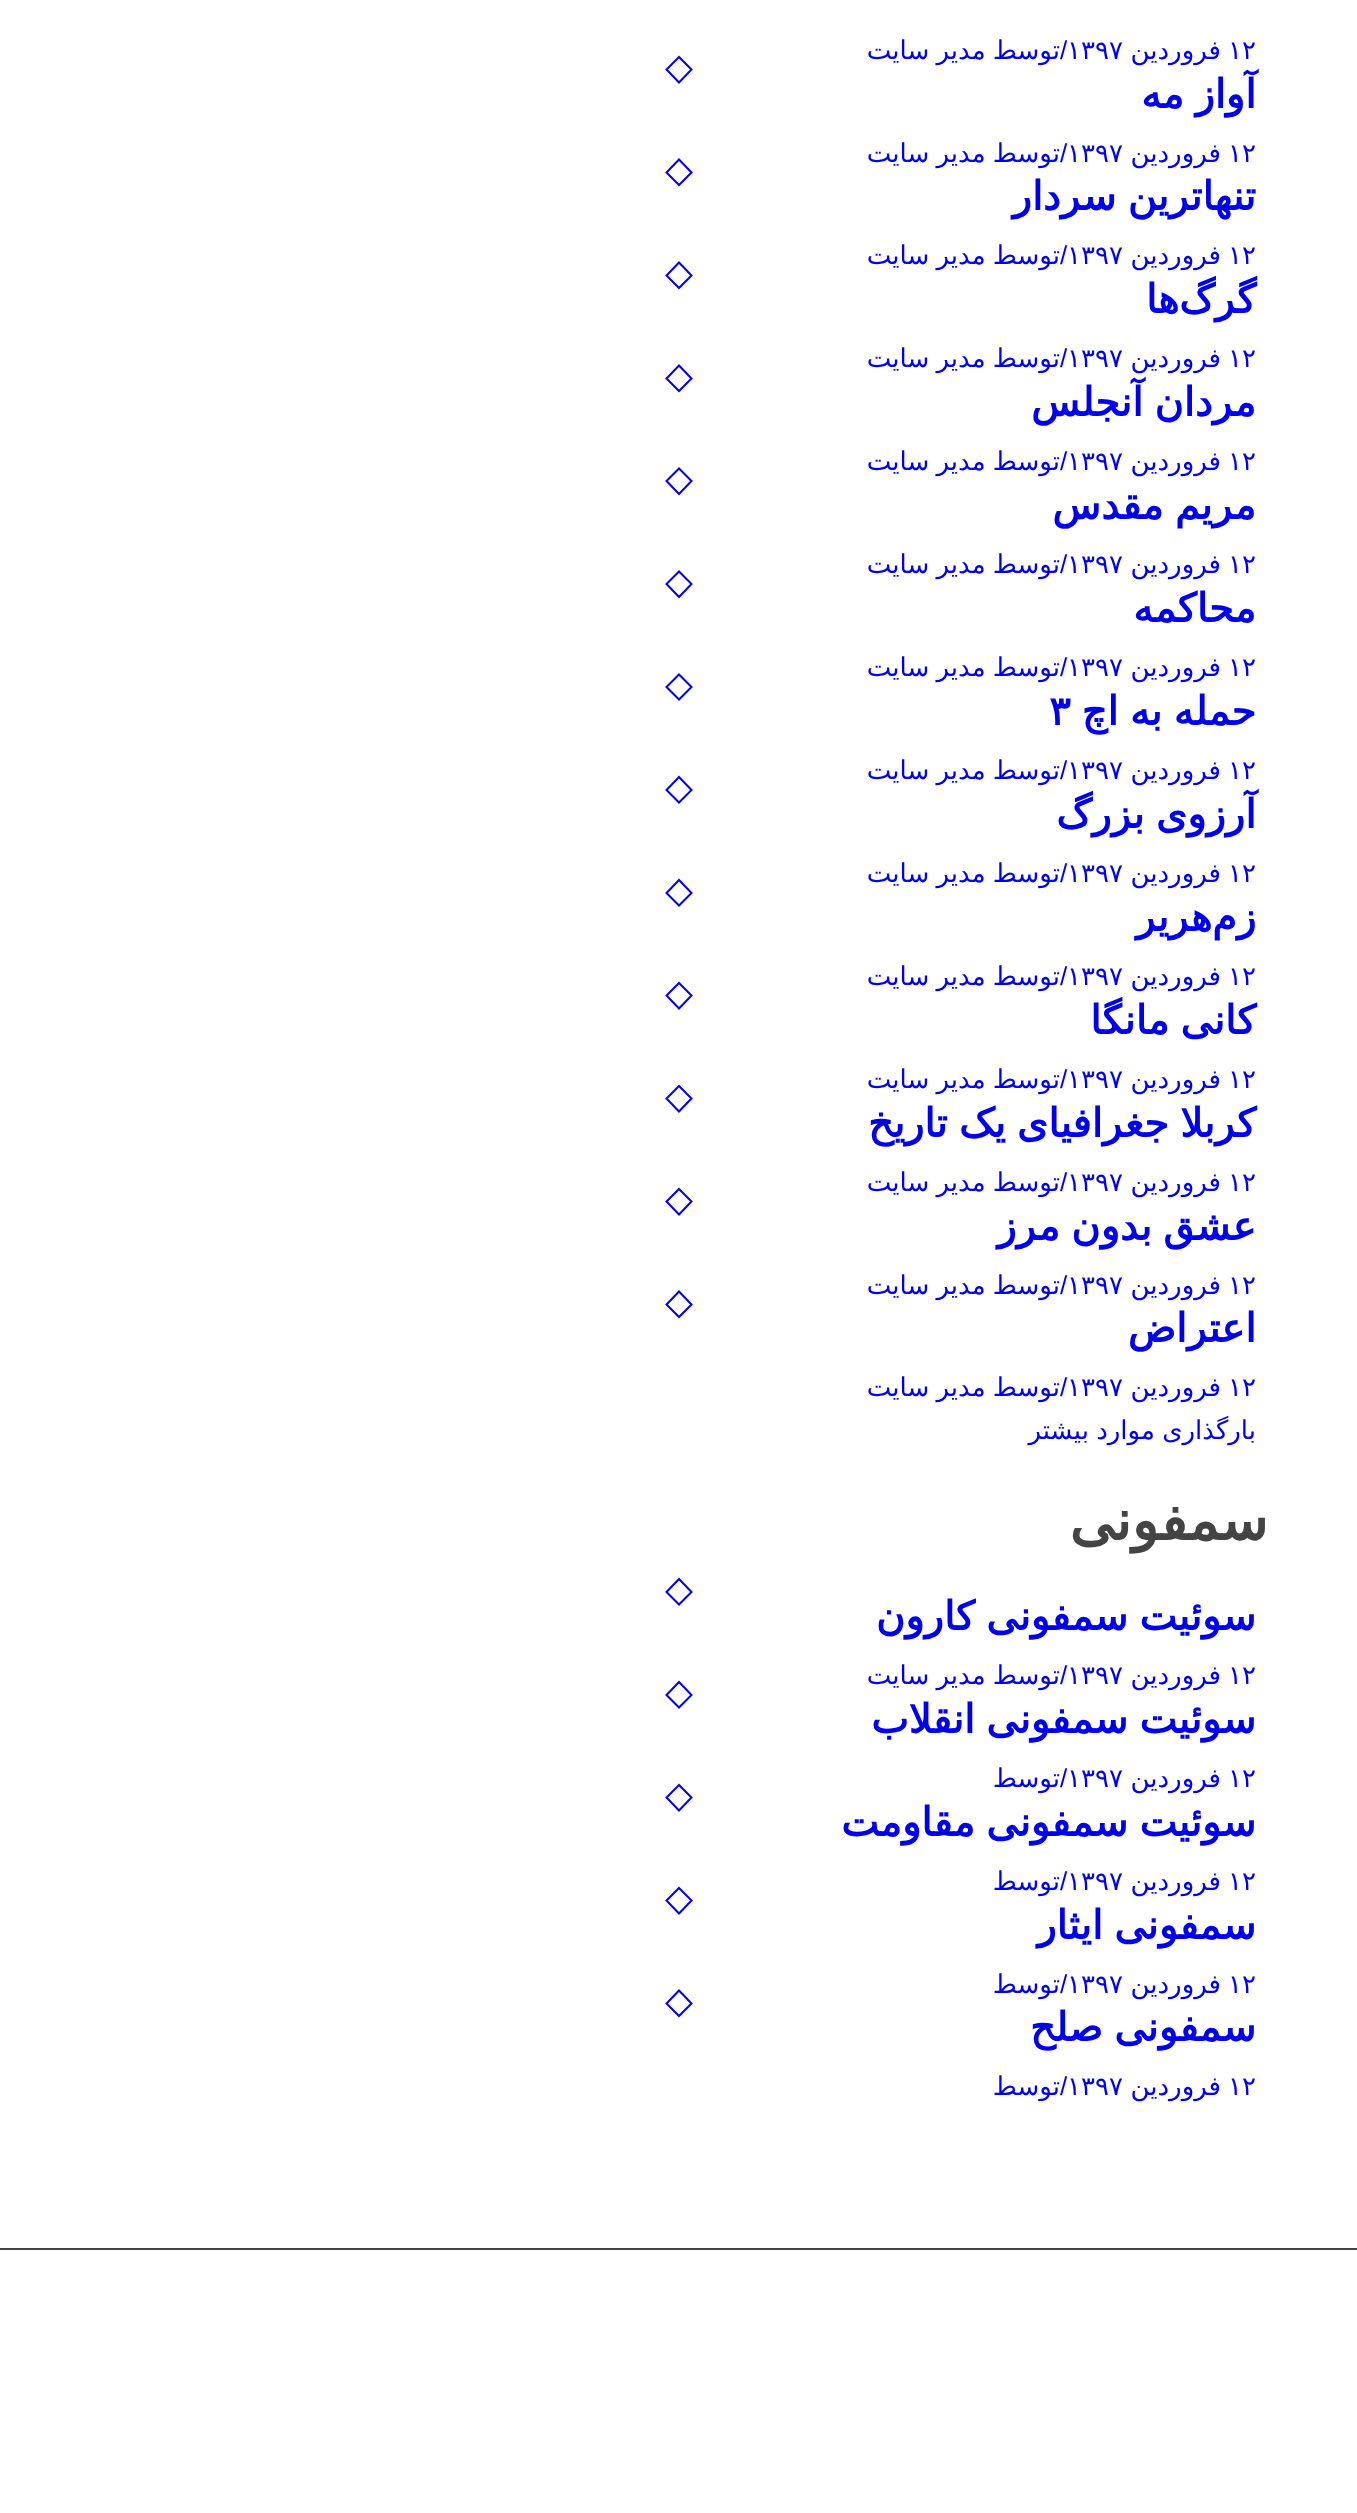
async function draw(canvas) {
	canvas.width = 1357;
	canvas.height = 2513;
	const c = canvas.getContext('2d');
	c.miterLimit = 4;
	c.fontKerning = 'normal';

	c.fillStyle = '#fff';
	c.fillRect(0, 0, 1357, 2513);
	c.font = '26px DejaVu Sans';
	c.fillStyle = '#00e';
	c.fillText('۱۲', 1228, 59);
	c.direction = 'rtl';
	c.fillText('فروردین', 1221, 59);
	c.direction = 'ltr';
	c.fillText('۱۳۹۷', 1067, 59);
	c.font = '26px Liberation Sans';
	c.fillText('/', 1060, 59);
	c.wordSpacing = '-1px';
	c.direction = 'rtl';
	c.font = '26px DejaVu Sans';
	c.fillText('توسط مدیر سایت', 1060, 59);
	c.wordSpacing = '-1.5px';
	c.font = 'bold 40px DejaVu Sans';
	c.fillText('آواز مه', 1256, 108);
	c.beginPath();
	c.moveTo(679, 57);
	c.lineTo(691.5, 69.5);
	c.lineTo(679, 82.5);
	c.lineTo(666.5, 69.5);
	c.closePath();
	c.strokeStyle = '#00e';
	c.lineWidth = 2;
	c.stroke();
	c.wordSpacing = '0px';
	c.direction = 'ltr';
	c.font = '26px DejaVu Sans';
	c.fillText('۱۲', 1228, 162);
	c.direction = 'rtl';
	c.fillText('فروردین', 1221, 162);
	c.direction = 'ltr';
	c.fillText('۱۳۹۷', 1067, 162);
	c.font = '26px Liberation Sans';
	c.fillText('/', 1060, 162);
	c.wordSpacing = '-1px';
	c.direction = 'rtl';
	c.font = '26px DejaVu Sans';
	c.fillText('توسط مدیر سایت', 1060, 162);
	c.beginPath();
	c.moveTo(679, 159.5);
	c.lineTo(691.5, 172.5);
	c.lineTo(679, 185);
	c.lineTo(666.5, 172.5);
	c.closePath();
	c.stroke();
	c.wordSpacing = '-1.5px';
	c.font = 'bold 40px DejaVu Sans';
	c.fillText('تنهاترین سردار', 1256, 210);
	c.wordSpacing = '0px';
	c.direction = 'ltr';
	c.font = '26px DejaVu Sans';
	c.fillText('۱۲', 1228, 264);
	c.direction = 'rtl';
	c.fillText('فروردین', 1221, 264);
	c.direction = 'ltr';
	c.fillText('۱۳۹۷', 1067, 264);
	c.font = '26px Liberation Sans';
	c.fillText('/', 1060, 264);
	c.wordSpacing = '-1px';
	c.direction = 'rtl';
	c.font = '26px DejaVu Sans';
	c.fillText('توسط مدیر سایت', 1060, 264);
	c.wordSpacing = '0px';
	c.font = 'bold 40px DejaVu Sans';
	c.fillText('گرگ', 1256, 313);
	c.fillText('ها', 1179, 313);
	c.beginPath();
	c.moveTo(679, 262.5);
	c.lineTo(691.5, 275.5);
	c.lineTo(679, 288);
	c.lineTo(666.5, 275.5);
	c.closePath();
	c.stroke();
	c.direction = 'ltr';
	c.font = '26px DejaVu Sans';
	c.fillText('۱۲', 1228, 367);
	c.direction = 'rtl';
	c.fillText('فروردین', 1221, 367);
	c.direction = 'ltr';
	c.fillText('۱۳۹۷', 1067, 367);
	c.font = '26px Liberation Sans';
	c.fillText('/', 1060, 367);
	c.wordSpacing = '-1px';
	c.direction = 'rtl';
	c.font = '26px DejaVu Sans';
	c.fillText('توسط مدیر سایت', 1060, 367);
	c.wordSpacing = '-1.5px';
	c.font = 'bold 40px DejaVu Sans';
	c.fillText('مردان آنجلس', 1256, 416);
	c.beginPath();
	c.moveTo(679, 365.5);
	c.lineTo(691.5, 378.5);
	c.lineTo(679, 391);
	c.lineTo(666.5, 378.5);
	c.closePath();
	c.stroke();
	c.wordSpacing = '0px';
	c.direction = 'ltr';
	c.font = '26px DejaVu Sans';
	c.fillText('۱۲', 1228, 470);
	c.direction = 'rtl';
	c.fillText('فروردین', 1221, 470);
	c.direction = 'ltr';
	c.fillText('۱۳۹۷', 1067, 470);
	c.font = '26px Liberation Sans';
	c.fillText('/', 1060, 470);
	c.wordSpacing = '-1px';
	c.direction = 'rtl';
	c.font = '26px DejaVu Sans';
	c.fillText('توسط مدیر سایت', 1060, 470);
	c.beginPath();
	c.moveTo(679, 468.5);
	c.lineTo(691.5, 481);
	c.lineTo(679, 494);
	c.lineTo(666.5, 481);
	c.closePath();
	c.stroke();
	c.wordSpacing = '-1.5px';
	c.font = 'bold 40px DejaVu Sans';
	c.fillText('مریم مقدس', 1256, 519);
	c.wordSpacing = '0px';
	c.direction = 'ltr';
	c.font = '26px DejaVu Sans';
	c.fillText('۱۲', 1228, 573);
	c.direction = 'rtl';
	c.fillText('فروردین', 1221, 573);
	c.direction = 'ltr';
	c.fillText('۱۳۹۷', 1067, 573);
	c.font = '26px Liberation Sans';
	c.fillText('/', 1060, 573);
	c.wordSpacing = '-1px';
	c.direction = 'rtl';
	c.font = '26px DejaVu Sans';
	c.fillText('توسط مدیر سایت', 1060, 573);
	c.beginPath();
	c.moveTo(679, 571.5);
	c.lineTo(691.5, 584);
	c.lineTo(679, 597);
	c.lineTo(666.5, 584);
	c.closePath();
	c.stroke();
	c.wordSpacing = '0px';
	c.font = 'bold 40px DejaVu Sans';
	c.fillText('محاکمه', 1256, 622);
	c.direction = 'ltr';
	c.font = '26px DejaVu Sans';
	c.fillText('۱۲', 1228, 676);
	c.direction = 'rtl';
	c.fillText('فروردین', 1221, 676);
	c.direction = 'ltr';
	c.fillText('۱۳۹۷', 1067, 676);
	c.font = '26px Liberation Sans';
	c.fillText('/', 1060, 676);
	c.wordSpacing = '-1px';
	c.direction = 'rtl';
	c.font = '26px DejaVu Sans';
	c.fillText('توسط مدیر سایت', 1060, 676);
	c.beginPath();
	c.moveTo(679, 674.5);
	c.lineTo(691.5, 687);
	c.lineTo(679, 699.5);
	c.lineTo(666.5, 687);
	c.closePath();
	c.stroke();
	c.wordSpacing = '-1.5px';
	c.font = 'bold 40px DejaVu Sans';
	c.fillText('حمله به اچ', 1256, 725);
	c.wordSpacing = '0px';
	c.direction = 'ltr';
	c.fillText('۳', 1049, 725);
	c.font = '26px DejaVu Sans';
	c.fillText('۱۲', 1228, 779);
	c.direction = 'rtl';
	c.fillText('فروردین', 1221, 779);
	c.direction = 'ltr';
	c.fillText('۱۳۹۷', 1067, 779);
	c.font = '26px Liberation Sans';
	c.fillText('/', 1060, 779);
	c.wordSpacing = '-1px';
	c.direction = 'rtl';
	c.font = '26px DejaVu Sans';
	c.fillText('توسط مدیر سایت', 1060, 779);
	c.wordSpacing = '-1.5px';
	c.font = 'bold 40px DejaVu Sans';
	c.fillText('آرزوی بزرگ', 1256, 828);
	c.beginPath();
	c.moveTo(679, 777);
	c.lineTo(691.5, 790);
	c.lineTo(679, 802.5);
	c.lineTo(666.5, 790);
	c.closePath();
	c.stroke();
	c.wordSpacing = '0px';
	c.direction = 'ltr';
	c.font = '26px DejaVu Sans';
	c.fillText('۱۲', 1228, 882);
	c.direction = 'rtl';
	c.fillText('فروردین', 1221, 882);
	c.direction = 'ltr';
	c.fillText('۱۳۹۷', 1067, 882);
	c.font = '26px Liberation Sans';
	c.fillText('/', 1060, 882);
	c.wordSpacing = '-1px';
	c.direction = 'rtl';
	c.font = '26px DejaVu Sans';
	c.fillText('توسط مدیر سایت', 1060, 882);
	c.beginPath();
	c.moveTo(679, 880);
	c.lineTo(691.5, 893);
	c.lineTo(679, 905.5);
	c.lineTo(666.5, 893);
	c.closePath();
	c.stroke();
	c.wordSpacing = '0px';
	c.font = 'bold 40px DejaVu Sans';
	c.fillText('زم', 1256, 931);
	c.fillText('هریر', 1212, 931);
	c.direction = 'ltr';
	c.font = '26px DejaVu Sans';
	c.fillText('۱۲', 1228, 985);
	c.direction = 'rtl';
	c.fillText('فروردین', 1221, 985);
	c.direction = 'ltr';
	c.fillText('۱۳۹۷', 1067, 985);
	c.font = '26px Liberation Sans';
	c.fillText('/', 1060, 985);
	c.wordSpacing = '-1px';
	c.direction = 'rtl';
	c.font = '26px DejaVu Sans';
	c.fillText('توسط مدیر سایت', 1060, 985);
	c.wordSpacing = '-1.5px';
	c.font = 'bold 40px DejaVu Sans';
	c.fillText('کانی مانگا', 1256, 1034);
	c.beginPath();
	c.moveTo(679, 983);
	c.lineTo(691.5, 995.5);
	c.lineTo(679, 1008.5);
	c.lineTo(666.5, 995.5);
	c.closePath();
	c.stroke();
	c.wordSpacing = '0px';
	c.direction = 'ltr';
	c.font = '26px DejaVu Sans';
	c.fillText('۱۲', 1228, 1088);
	c.direction = 'rtl';
	c.fillText('فروردین', 1221, 1088);
	c.direction = 'ltr';
	c.fillText('۱۳۹۷', 1067, 1088);
	c.font = '26px Liberation Sans';
	c.fillText('/', 1060, 1088);
	c.wordSpacing = '-1px';
	c.direction = 'rtl';
	c.font = '26px DejaVu Sans';
	c.fillText('توسط مدیر سایت', 1060, 1088);
	c.beginPath();
	c.moveTo(679, 1086);
	c.lineTo(691.5, 1098.5);
	c.lineTo(679, 1111.5);
	c.lineTo(666.5, 1098.5);
	c.closePath();
	c.stroke();
	c.wordSpacing = '-1.5px';
	c.font = 'bold 40px DejaVu Sans';
	c.fillText('کربلا جغرافیای یک تاریخ', 1256, 1137);
	c.wordSpacing = '0px';
	c.direction = 'ltr';
	c.font = '26px DejaVu Sans';
	c.fillText('۱۲', 1228, 1191);
	c.direction = 'rtl';
	c.fillText('فروردین', 1221, 1191);
	c.direction = 'ltr';
	c.fillText('۱۳۹۷', 1067, 1191);
	c.font = '26px Liberation Sans';
	c.fillText('/', 1060, 1191);
	c.wordSpacing = '-1px';
	c.direction = 'rtl';
	c.font = '26px DejaVu Sans';
	c.fillText('توسط مدیر سایت', 1060, 1191);
	c.beginPath();
	c.moveTo(679, 1189);
	c.lineTo(691.5, 1201.5);
	c.lineTo(679, 1214.5);
	c.lineTo(666.5, 1201.5);
	c.closePath();
	c.stroke();
	c.wordSpacing = '-1.5px';
	c.font = 'bold 40px DejaVu Sans';
	c.fillText('عشق بدون مرز', 1256, 1240);
	c.wordSpacing = '0px';
	c.direction = 'ltr';
	c.font = '26px DejaVu Sans';
	c.fillText('۱۲', 1228, 1294);
	c.direction = 'rtl';
	c.fillText('فروردین', 1221, 1294);
	c.direction = 'ltr';
	c.fillText('۱۳۹۷', 1067, 1294);
	c.font = '26px Liberation Sans';
	c.fillText('/', 1060, 1294);
	c.wordSpacing = '-1px';
	c.direction = 'rtl';
	c.font = '26px DejaVu Sans';
	c.fillText('توسط مدیر سایت', 1060, 1294);
	c.beginPath();
	c.moveTo(679, 1291.5);
	c.lineTo(691.5, 1304.5);
	c.lineTo(679, 1317);
	c.lineTo(666.5, 1304.5);
	c.closePath();
	c.stroke();
	c.wordSpacing = '0px';
	c.font = 'bold 40px DejaVu Sans';
	c.fillText('اعتراض', 1256, 1342);
	c.direction = 'ltr';
	c.font = '26px DejaVu Sans';
	c.fillText('۱۲', 1228, 1396);
	c.direction = 'rtl';
	c.fillText('فروردین', 1221, 1396);
	c.direction = 'ltr';
	c.fillText('۱۳۹۷', 1067, 1396);
	c.font = '26px Liberation Sans';
	c.fillText('/', 1060, 1396);
	c.wordSpacing = '-1px';
	c.direction = 'rtl';
	c.font = '26px DejaVu Sans';
	c.fillText('توسط مدیر سایت', 1060, 1396);
	c.fillText('بارگذاری موارد بیشتر', 1256, 1439);
	c.letterSpacing = '2px';
	c.wordSpacing = '0px';
	c.font = 'bold 56px DejaVu Sans';
	c.fillStyle = '#444';
	c.fillText('سمفونی', 1268, 1540);
	c.beginPath();
	c.moveTo(679, 1579);
	c.lineTo(691.5, 1592);
	c.lineTo(679, 1604.5);
	c.lineTo(666.5, 1592);
	c.closePath();
	c.stroke();
	c.letterSpacing = '0px';
	c.wordSpacing = '-1.5px';
	c.font = 'bold 40px DejaVu Sans';
	c.fillStyle = '#00e';
	c.fillText('سوئیت سمفونی کارون', 1256, 1630);
	c.wordSpacing = '0px';
	c.direction = 'ltr';
	c.font = '26px DejaVu Sans';
	c.fillText('۱۲', 1228, 1684);
	c.direction = 'rtl';
	c.fillText('فروردین', 1221, 1684);
	c.direction = 'ltr';
	c.fillText('۱۳۹۷', 1067, 1684);
	c.font = '26px Liberation Sans';
	c.fillText('/', 1060, 1684);
	c.wordSpacing = '-1px';
	c.direction = 'rtl';
	c.font = '26px DejaVu Sans';
	c.fillText('توسط مدیر سایت', 1060, 1684);
	c.beginPath();
	c.moveTo(679, 1682);
	c.lineTo(691.5, 1695);
	c.lineTo(679, 1707.5);
	c.lineTo(666.5, 1695);
	c.closePath();
	c.stroke();
	c.wordSpacing = '-1.5px';
	c.font = 'bold 40px DejaVu Sans';
	c.fillText('سوئیت سمفونی انقلاب', 1256, 1733);
	c.wordSpacing = '0px';
	c.direction = 'ltr';
	c.font = '26px DejaVu Sans';
	c.fillText('۱۲', 1228, 1787);
	c.direction = 'rtl';
	c.fillText('فروردین', 1221, 1787);
	c.direction = 'ltr';
	c.fillText('۱۳۹۷', 1067, 1787);
	c.font = '26px Liberation Sans';
	c.fillText('/', 1060, 1787);
	c.direction = 'rtl';
	c.font = '26px DejaVu Sans';
	c.fillText('توسط', 1060, 1787);
	c.beginPath();
	c.moveTo(679, 1785);
	c.lineTo(691.5, 1797.5);
	c.lineTo(679, 1810.5);
	c.lineTo(666.5, 1797.5);
	c.closePath();
	c.stroke();
	c.wordSpacing = '-1.5px';
	c.font = 'bold 40px DejaVu Sans';
	c.fillText('سوئیت سمفونی مقاومت', 1256, 1836);
	c.wordSpacing = '0px';
	c.direction = 'ltr';
	c.font = '26px DejaVu Sans';
	c.fillText('۱۲', 1228, 1890);
	c.direction = 'rtl';
	c.fillText('فروردین', 1221, 1890);
	c.direction = 'ltr';
	c.fillText('۱۳۹۷', 1067, 1890);
	c.font = '26px Liberation Sans';
	c.fillText('/', 1060, 1890);
	c.direction = 'rtl';
	c.font = '26px DejaVu Sans';
	c.fillText('توسط', 1060, 1890);
	c.beginPath();
	c.moveTo(679, 1888);
	c.lineTo(691.5, 1900.5);
	c.lineTo(679, 1913.5);
	c.lineTo(666.5, 1900.5);
	c.closePath();
	c.stroke();
	c.wordSpacing = '-1.5px';
	c.font = 'bold 40px DejaVu Sans';
	c.fillText('سمفونی ایثار', 1256, 1939);
	c.wordSpacing = '0px';
	c.direction = 'ltr';
	c.font = '26px DejaVu Sans';
	c.fillText('۱۲', 1228, 1993);
	c.direction = 'rtl';
	c.fillText('فروردین', 1221, 1993);
	c.direction = 'ltr';
	c.fillText('۱۳۹۷', 1067, 1993);
	c.font = '26px Liberation Sans';
	c.fillText('/', 1060, 1993);
	c.direction = 'rtl';
	c.font = '26px DejaVu Sans';
	c.fillText('توسط', 1060, 1993);
	c.beginPath();
	c.moveTo(679, 1990.5);
	c.lineTo(691.5, 2003.5);
	c.lineTo(679, 2016);
	c.lineTo(666.5, 2003.5);
	c.closePath();
	c.stroke();
	c.wordSpacing = '-1.5px';
	c.font = 'bold 40px DejaVu Sans';
	c.fillText('سمفونی صلح', 1256, 2041);
	c.wordSpacing = '0px';
	c.direction = 'ltr';
	c.font = '26px DejaVu Sans';
	c.fillText('۱۲', 1228, 2095);
	c.direction = 'rtl';
	c.fillText('فروردین', 1221, 2095);
	c.direction = 'ltr';
	c.fillText('۱۳۹۷', 1067, 2095);
	c.font = '26px Liberation Sans';
	c.fillText('/', 1060, 2095);
	c.direction = 'rtl';
	c.font = '26px DejaVu Sans';
	c.fillText('توسط', 1060, 2095);
	c.fillStyle = '#444';
	c.fillRect(0, 2248, 1357, 2);
}

draw(document.querySelector('canvas'));
